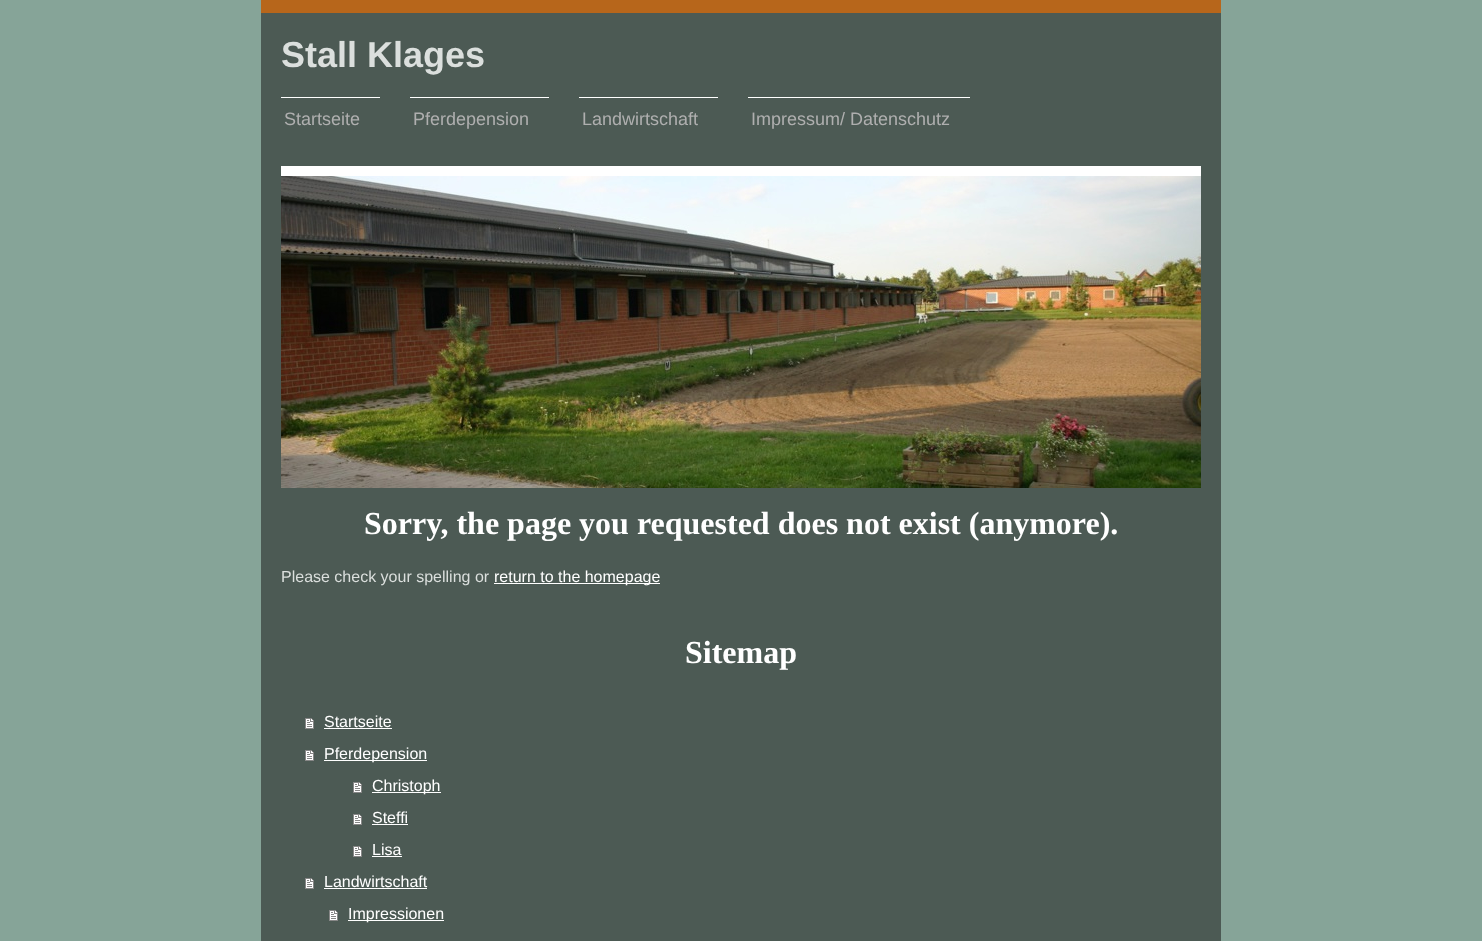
async function draw(canvas) {
	canvas.width = 1482;
	canvas.height = 941;
	const c = canvas.getContext('2d');
	c.miterLimit = 4;
	c.fontKerning = 'normal';
	async function loadImage(src) {
		const img = new Image();
		img.src = src;
		await img.decode();
		return img;
	}

	c.fillStyle = '#86a498';
	c.fillRect(0, 0, 1482, 941);
	c.fillStyle = '#4c5a54';
	c.fillRect(261, 13, 960, 928);
	c.fillStyle = '#b7661b';
	c.fillRect(261, 0, 960, 13);
	c.font = 'bold 36px Liberation Sans';
	c.fillStyle = '#dbdfdd';
	c.fillText('Stall Klages', 281, 67);
	c.fillStyle = '#fff';
	c.fillRect(281, 97, 99, 1);
	c.font = '18px Liberation Sans';
	c.fillStyle = '#afafaf';
	c.fillText('Startseite', 284, 125);
	c.fillStyle = '#fff';
	c.fillRect(410, 97, 139, 1);
	c.fillStyle = '#afafaf';
	c.fillText('Pferdepension', 413, 125);
	c.fillStyle = '#fff';
	c.fillRect(579, 97, 139, 1);
	c.fillStyle = '#afafaf';
	c.fillText('Landwirtschaft', 582, 125);
	c.fillStyle = '#fff';
	c.fillRect(748, 97, 222, 1);
	c.fillStyle = '#afafaf';
	c.fillText('Impressum/ Datenschutz', 751, 125);
	c.fillStyle = '#fff';
	c.fillRect(281, 166, 920, 10);
	c.drawImage(await loadImage('img1.png'), 281, 176, 920, 312);
	c.font = 'bold 32px Liberation Serif';
	c.fillText('Sorry, the page you requested does not exist (anymore).', 364, 534);
	c.font = '16px Liberation Sans';
	c.fillStyle = '#dbdfdd';
	c.fillText('Please check your spelling or', 281, 582);
	c.fillStyle = '#fff';
	c.fillRect(494, 583, 166, 1);
	c.fillText('return to the homepage', 494, 582);
	c.font = 'bold 32px Liberation Serif';
	c.fillText('Sitemap', 685, 663);
	c.drawImage(await loadImage('img2.png'), 305, 718, 9, 11);
	c.font = '16px Liberation Sans';
	c.fillText('Startseite', 324, 727);
	c.fillRect(324, 728, 68, 1);
	c.drawImage(await loadImage('img2.png'), 305, 750, 9, 11);
	c.fillRect(324, 760, 103, 1);
	c.fillText('Pferdepension', 324, 759);
	c.drawImage(await loadImage('img2.png'), 353, 782, 9, 11);
	c.fillRect(372, 792, 69, 1);
	c.fillText('Christoph', 372, 791);
	c.drawImage(await loadImage('img2.png'), 353, 814, 9, 11);
	c.fillText('Steffi', 372, 823);
	c.fillRect(372, 824, 36, 1);
	c.drawImage(await loadImage('img2.png'), 353, 846, 9, 11);
	c.fillText('Lisa', 372, 855);
	c.fillRect(372, 856, 30, 1);
	c.drawImage(await loadImage('img2.png'), 305, 878, 9, 11);
	c.fillText('Landwirtschaft', 324, 887);
	c.fillRect(324, 888, 103, 1);
	c.drawImage(await loadImage('img2.png'), 329, 910, 9, 11);
	c.fillRect(348, 920, 96, 1);
	c.fillText('Impressionen', 348, 919);
}

draw(document.querySelector('canvas'));
